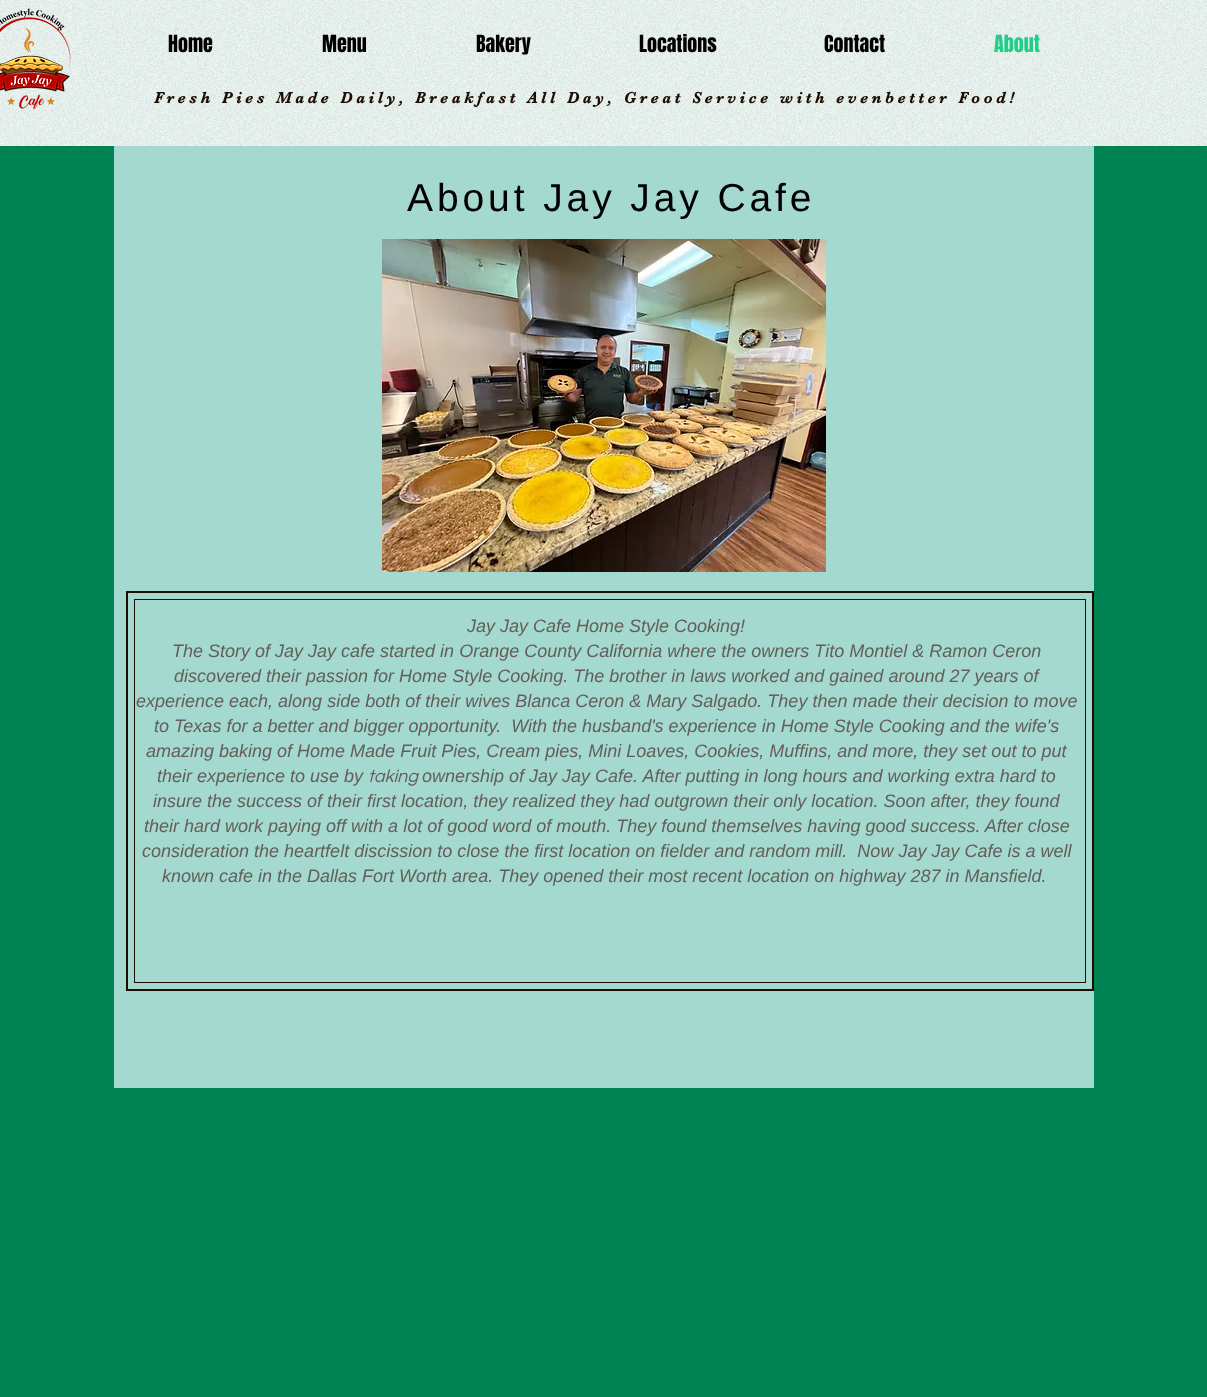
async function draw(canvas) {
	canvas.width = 1207;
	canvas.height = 1397;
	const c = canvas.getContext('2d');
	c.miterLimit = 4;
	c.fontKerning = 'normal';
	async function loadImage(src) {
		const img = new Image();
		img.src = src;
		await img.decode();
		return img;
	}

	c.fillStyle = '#018253';
	c.fillRect(0, 0, 1207, 1397);
	c.fillStyle = '#ebf5f1';
	c.fillRect(0, 0, 1207, 146);
	c.drawImage(await loadImage('img1.png'), 0, 0, 1207, 146);
	c.drawImage(await loadImage('img2.png'), 0, 8, 71, 102);
	c.font = '20px Anton';
	c.fillStyle = '#000';
	for (const [text, x, y] of [
		['Home', 168, 52],
		['Menu', 322, 52],
		['Bakery', 476, 52],
		['Locations', 639, 52],
		['Contact', 824, 52],
	]) {
		c.fillText(text, x, y);
	}
	c.fillStyle = '#20ce88';
	c.fillText('About', 994, 52);
	c.letterSpacing = '4px';
	c.font = 'bold 16px "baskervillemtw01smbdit"';
	c.fillStyle = '#1d0e03';
	c.fillText('Fresh Pies Made Daily, Breakfast All Day, Great Service with evenbetter Food!', 154, 103);
	c.fillStyle = '#a3d9cf';
	c.fillRect(114, 146, 980, 942);
	c.letterSpacing = '3.9px';
	c.font = '39px Liberation Sans';
	c.fillStyle = '#000';
	c.fillText('About Jay Jay Cafe', 407, 211);
	c.drawImage(await loadImage('img3.png'), 382, 239, 444, 333);
	c.strokeStyle = '#1d0e03';
	c.lineWidth = 2;
	c.strokeRect(127, 592, 966, 398);
	c.lineWidth = 1;
	c.strokeRect(134.5, 599.5, 951, 383);
	c.letterSpacing = '0px';
	c.font = 'italic 18px Liberation Sans';
	c.fillStyle = '#645e5a';
	for (const [text, x, y] of [
		['Jay Jay Cafe Home Style Cooking!', 467, 632],
		['The Story of Jay Jay cafe started in Orange County California where the owners Tito Montiel & Ramon Ceron', 172, 657],
		['discovered their passion for Home Style Cooking. The brother in laws worked and gained around 27 years of', 174, 682],
		['experience each, along side both of their wives Blanca Ceron & Mary Salgado. They then made their decision to move', 136, 707],
		['to Texas for a better and bigger opportunity.  With the husband\'s experience in Home Style Cooking and the wife\'s', 154, 732],
		['amazing baking of Home Made Fruit Pies, Cream pies, Mini Loaves, Cookies, Muffins, and more, they set out to put', 146, 757],
		['their experience to use by', 157, 782],
	]) {
		c.fillText(text, x, y);
	}
	c.font = 'italic 18px Questrial';
	c.fillText('taking', 368, 782);
	c.font = 'italic 18px Liberation Sans';
	for (const [text, x, y] of [
		['ownership of Jay Jay Cafe. After putting in long hours and working extra hard to', 422, 782],
		['insure the success of their first location, they realized they had outgrown their only location. Soon after, they found', 153, 807],
		['their hard work paying off with a lot of good word of mouth. They found themselves having good success. After close', 144, 832],
		['consideration the heartfelt discission to close the first location on fielder and random mill.  Now Jay Jay Cafe is a well', 142, 857],
		['known cafe in the Dallas Fort Worth area. They opened their most recent location on highway 287 in Mansfield.', 162, 882],
	]) {
		c.fillText(text, x, y);
	}
}

draw(document.querySelector('canvas'));
